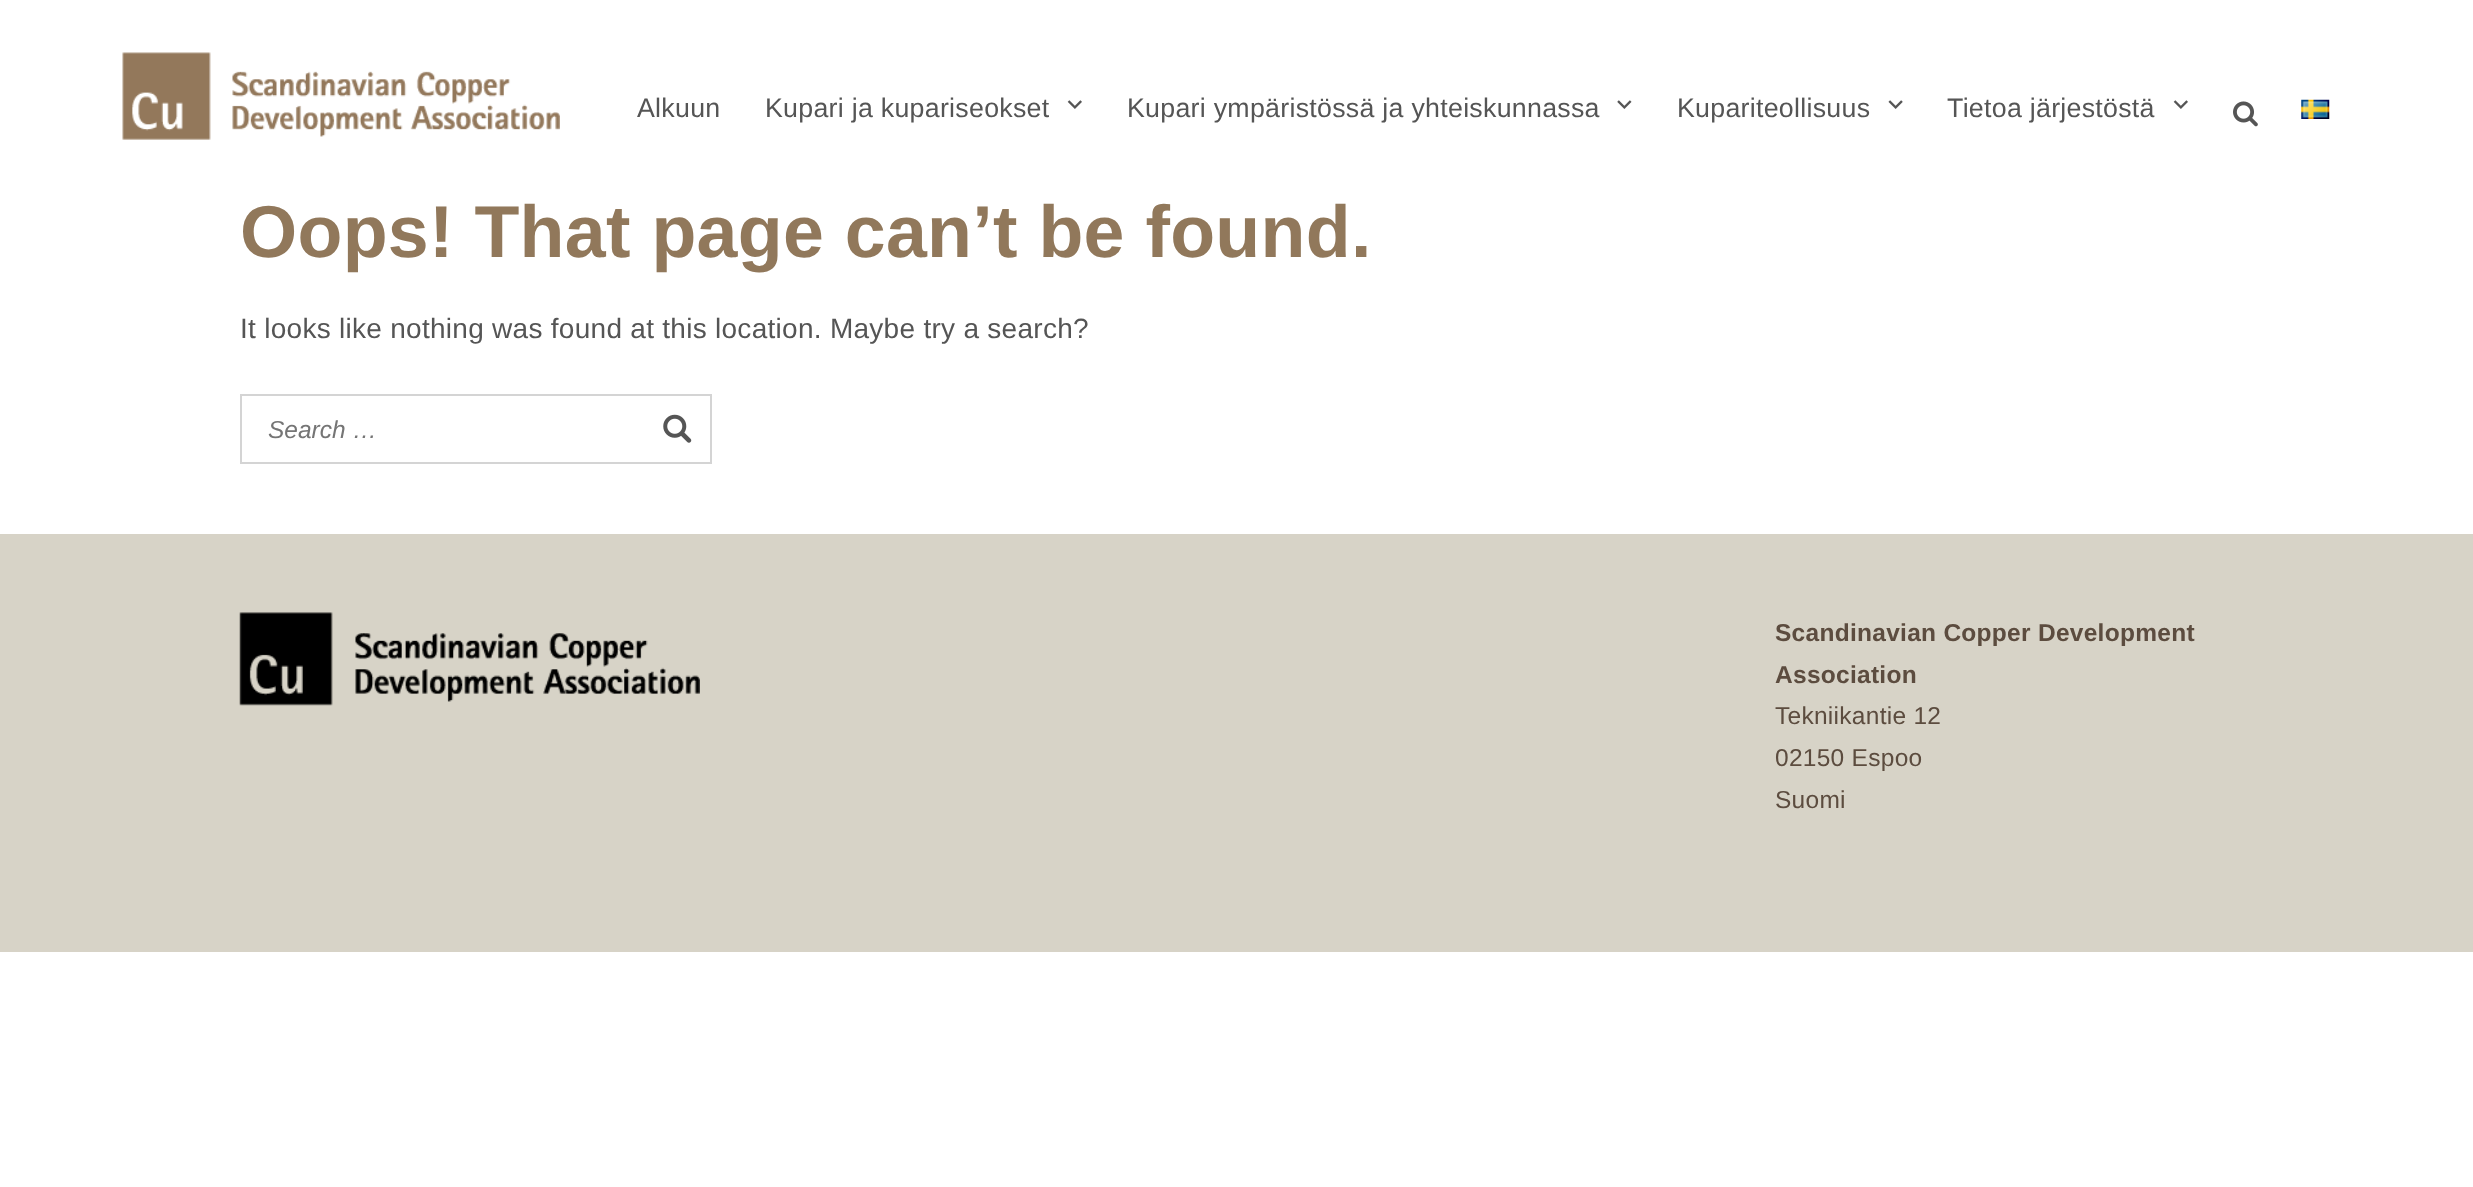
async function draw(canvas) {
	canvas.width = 2473;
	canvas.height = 1187;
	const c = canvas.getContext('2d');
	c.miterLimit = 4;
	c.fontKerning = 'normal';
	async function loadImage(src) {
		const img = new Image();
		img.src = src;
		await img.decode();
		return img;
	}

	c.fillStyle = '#fff';
	c.fillRect(0, 0, 2473, 1187);
	c.drawImage(await loadImage('img1.png'), 122, 52, 438, 88);
	c.letterSpacing = '0.28px';
	c.font = '26.75px Liberation Sans';
	c.fillStyle = '#555';
	c.fillText('Alkuun', 637, 117);
	c.fillText('Kupari ja kupariseokset', 765, 117);
	c.drawImage(await loadImage('img2.png'), 1067, 100, 15, 9);
	c.fillText('Kupari ympäristössä ja yhteiskunnassa', 1127, 117);
	c.drawImage(await loadImage('img3.png'), 1617, 100, 15, 9);
	c.fillText('Kupariteollisuus', 1677, 117);
	c.drawImage(await loadImage('img4.png'), 1888, 100, 15, 9);
	c.fillText('Tietoa järjestöstä', 1947, 117);
	c.drawImage(await loadImage('img2.png'), 2173, 100, 15, 9);
	c.drawImage(await loadImage('img5.png'), 2233, 101, 25, 26);
	c.drawImage(await loadImage('img6.png'), 2301, 99, 29, 20);
	c.font = 'bold 73.5px Liberation Sans';
	c.fillStyle = '#91785b';
	c.fillText('Oops! That page can’t be found.', 240, 257);
	c.font = '28px Liberation Sans';
	c.fillStyle = '#555';
	c.fillText('It looks like nothing was found at this location. Maybe try a search?', 240, 338);
	c.strokeStyle = '#d4d4d4';
	c.lineWidth = 2;
	c.strokeRect(241, 395, 470, 68);
	c.letterSpacing = '0px';
	c.font = 'italic 24.5px Liberation Sans';
	c.fillStyle = '#757575';
	c.fillText('Search …', 268, 438);
	c.drawImage(await loadImage('img7.png'), 663, 414, 29, 29);
	c.fillStyle = '#d7d3c7';
	c.fillRect(0, 534, 2473, 418);
	c.drawImage(await loadImage('img8.png'), 239, 612, 461, 94);
	c.letterSpacing = '0.28px';
	c.font = 'bold 24.5px Liberation Sans';
	c.fillStyle = '#5c4c3f';
	c.fillText('Scandinavian Copper Development', 1775, 641);
	c.fillText('Association', 1775, 683);
	c.font = '24.5px Liberation Sans';
	for (const [text, x, y] of [
		['Tekniikantie 12', 1775, 724],
		['02150 Espoo', 1775, 766],
		['Suomi', 1775, 808],
	]) {
		c.fillText(text, x, y);
	}
}

draw(document.querySelector('canvas'));
